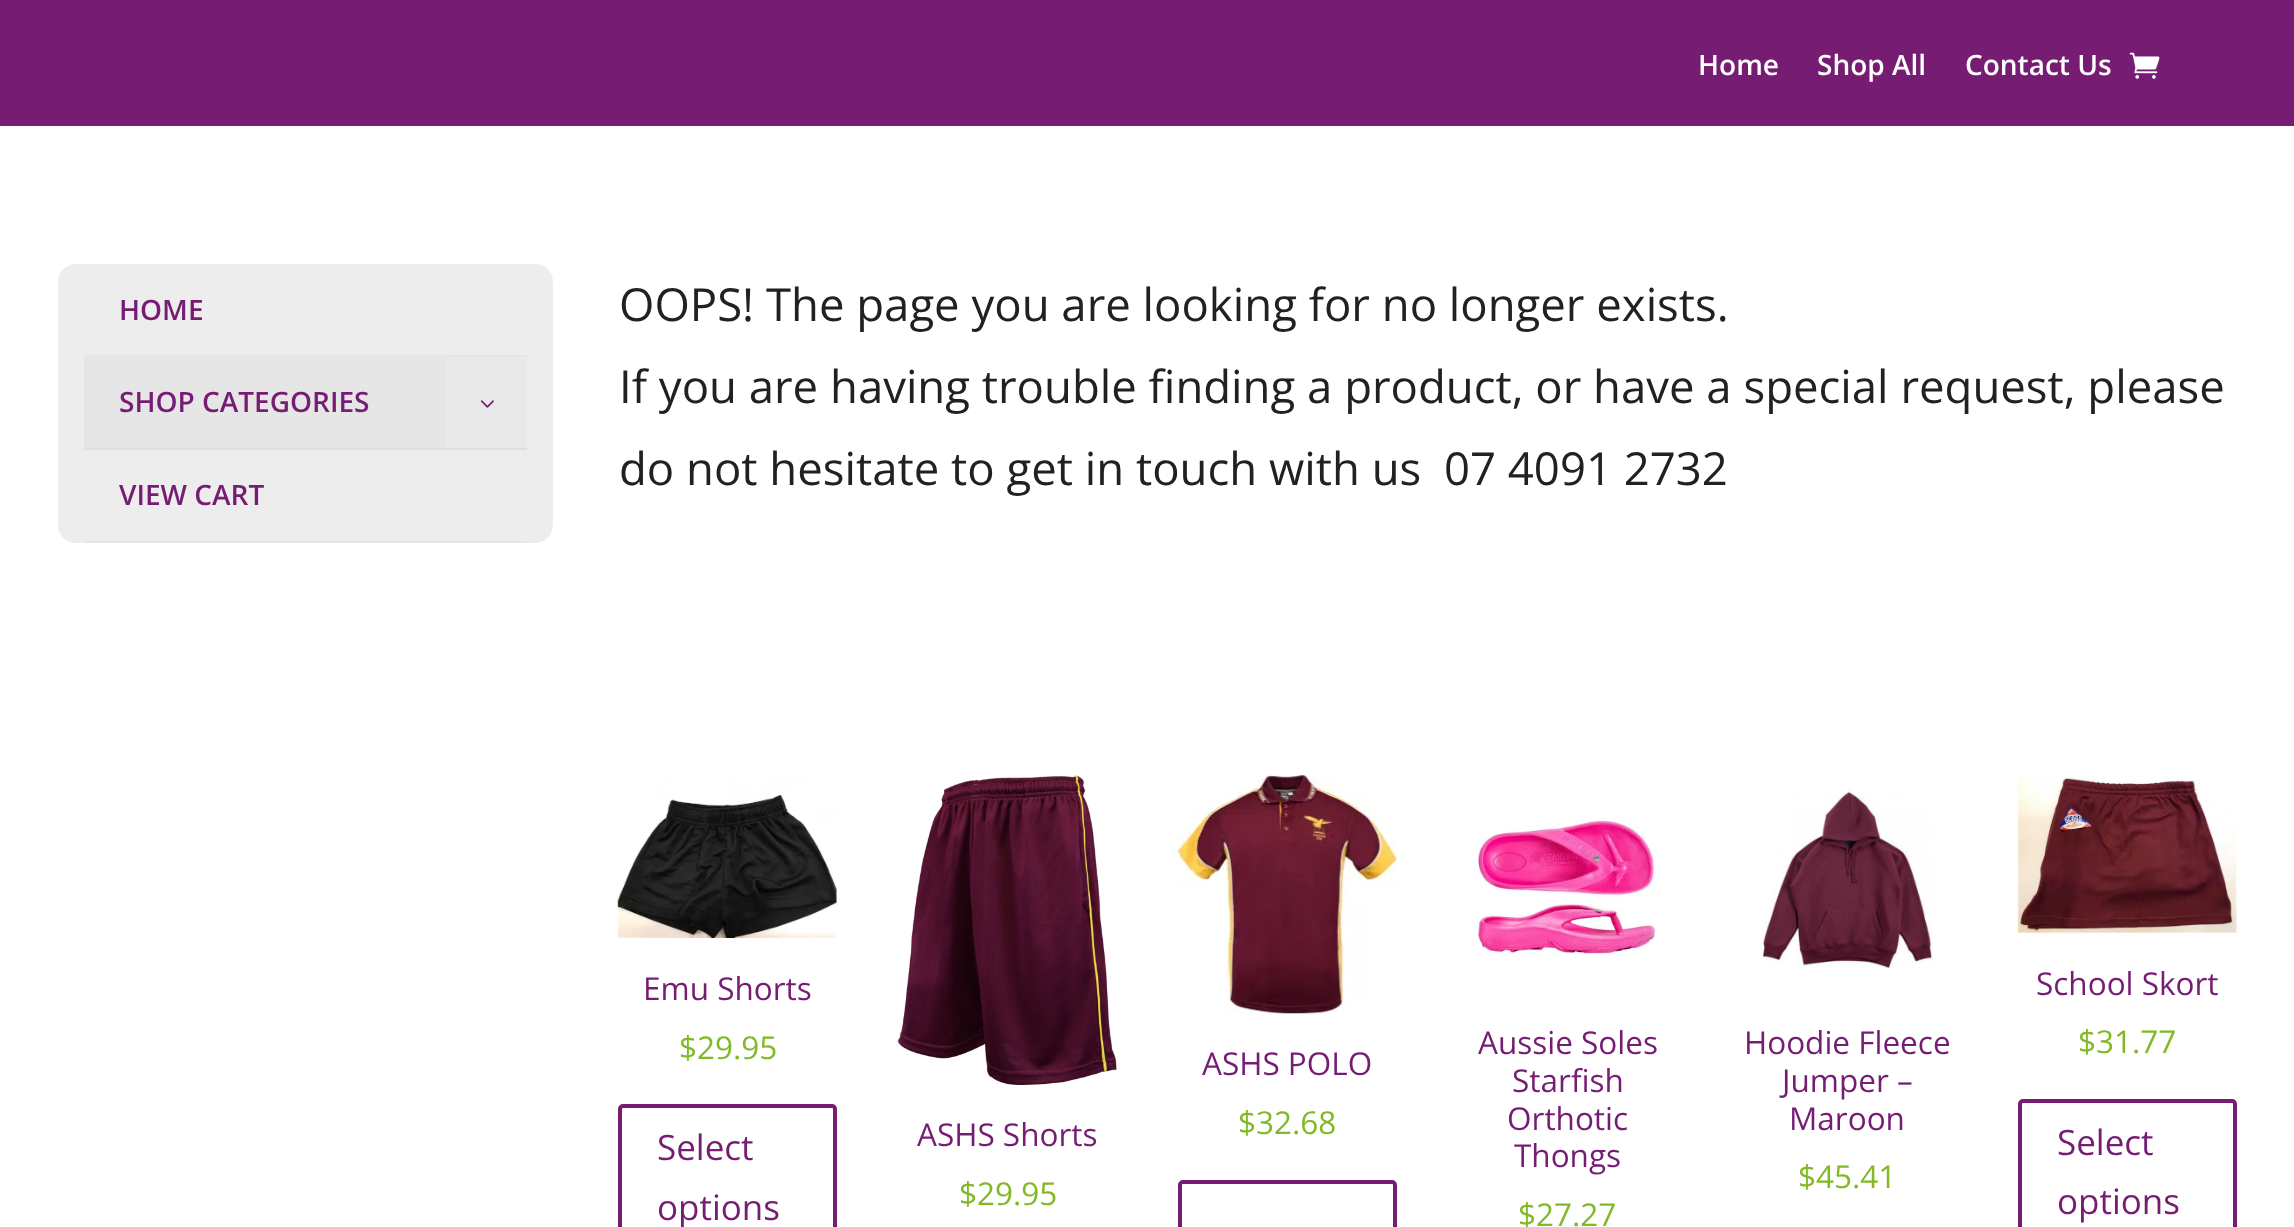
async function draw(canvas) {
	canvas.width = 2294;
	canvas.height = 1227;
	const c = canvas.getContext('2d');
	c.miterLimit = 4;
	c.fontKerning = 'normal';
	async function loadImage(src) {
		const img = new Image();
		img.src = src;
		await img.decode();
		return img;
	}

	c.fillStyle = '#fff';
	c.fillRect(0, 0, 2294, 1227);
	c.fillStyle = '#761c73';
	c.fillRect(0, 0, 2294, 126);
	c.font = '600 28px Open Sans';
	c.fillStyle = '#fff';
	for (const [text, x, y] of [
		['Home', 1698, 75],
		['Shop All', 1817, 75],
		['Contact Us', 1965, 75],
	]) {
		c.fillText(text, x, y);
	}
	c.drawImage(await loadImage('img1.png'), 2129, 52, 31, 27);
	c.fillStyle = '#ededed';
	c.beginPath();
	c.roundRect(58, 264, 495, 279, 18);
	c.fill();
	c.fillStyle = '#e6e6e6';
	c.fillRect(84, 355, 443, 2);
	c.fillStyle = '#761c73';
	c.fillText('HOME', 119, 320);
	c.fillStyle = '#e6e6e6';
	c.fillRect(84, 357, 362, 91);
	c.fillStyle = '#dfdfdf';
	c.fillRect(84, 448, 443, 2);
	c.fillStyle = '#761c73';
	c.fillText('SHOP CATEGORIES', 119, 412);
	c.fillStyle = '#e9e9e9';
	c.fillRect(446, 357, 81, 91);
	c.drawImage(await loadImage('img2.png'), 480, 400, 14, 8);
	c.fillStyle = '#e6e6e6';
	c.fillRect(84, 541, 443, 2);
	c.fillStyle = '#761c73';
	c.fillText('VIEW CART', 119, 505);
	c.font = '45.5px Open Sans';
	c.fillStyle = '#212121';
	for (const [text, x, y] of [
		['OOPS! The page you are looking for no longer exists.', 619, 321],
		['If you are having trouble finding a product, or have a special request, please', 619, 403],
		['do not hesitate to get in touch with us', 619, 485],
		['07 4091 2732', 1444, 485],
	]) {
		c.fillText(text, x, y);
	}
	c.drawImage(await loadImage('img3.png'), 617, 776, 220, 162);
	c.font = '31.5px Open Sans';
	c.fillStyle = '#761c73';
	c.fillText('Emu Shorts', 643, 1000);
	c.fillStyle = '#82ba25';
	c.fillText('$29.95', 679, 1059);
	c.beginPath();
	c.roundRect(620, 1106, 215, 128, 3);
	c.strokeStyle = '#761c73';
	c.lineWidth = 4;
	c.stroke();
	c.font = '35px Open Sans';
	c.fillStyle = '#761c73';
	c.fillText('Select', 657, 1160);
	c.fillText('options', 657, 1220);
	c.drawImage(await loadImage('img4.png'), 1177, 775, 220, 239);
	c.font = '31.5px Open Sans';
	c.fillText('ASHS POLO', 1202, 1075);
	c.fillStyle = '#82ba25';
	c.fillText('$32.68', 1238, 1134);
	c.beginPath();
	c.roundRect(1180, 1182, 215, 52, 3);
	c.stroke();
	c.drawImage(await loadImage('img5.png'), 1477, 819, 179, 136);
	c.fillStyle = '#761c73';
	for (const [text, x, y] of [
		['Aussie Soles', 1478, 1054],
		['Starfish', 1512, 1092],
		['Orthotic', 1507, 1130],
		['Thongs', 1514, 1167],
	]) {
		c.fillText(text, x, y);
	}
	c.fillStyle = '#82ba25';
	c.fillText('$27.27', 1518, 1226);
	c.drawImage(await loadImage('img6.png'), 1761, 788, 172, 181);
	c.fillStyle = '#761c73';
	for (const [text, x, y] of [
		['Hoodie Fleece', 1744, 1054],
		['Jumper –', 1782, 1092],
		['Maroon', 1789, 1130],
	]) {
		c.fillText(text, x, y);
	}
	c.fillStyle = '#82ba25';
	c.fillText('$45.41', 1798, 1188);
	c.drawImage(await loadImage('img7.png'), 2017, 775, 220, 158);
	c.fillStyle = '#761c73';
	c.fillText('School Skort', 2036, 995);
	c.fillStyle = '#82ba25';
	c.fillText('$31.77', 2078, 1053);
	c.beginPath();
	c.roundRect(2020, 1101, 215, 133, 3);
	c.stroke();
	c.font = '35px Open Sans';
	c.fillStyle = '#761c73';
	c.fillText('Select', 2057, 1155);
	c.fillText('options', 2057, 1214);
	c.drawImage(await loadImage('img8.png'), 897, 775, 220, 310);
	c.font = '31.5px Open Sans';
	c.fillText('ASHS Shorts', 917, 1146);
	c.fillStyle = '#82ba25';
	c.fillText('$29.95', 959, 1205);
}

draw(document.querySelector('canvas'));
